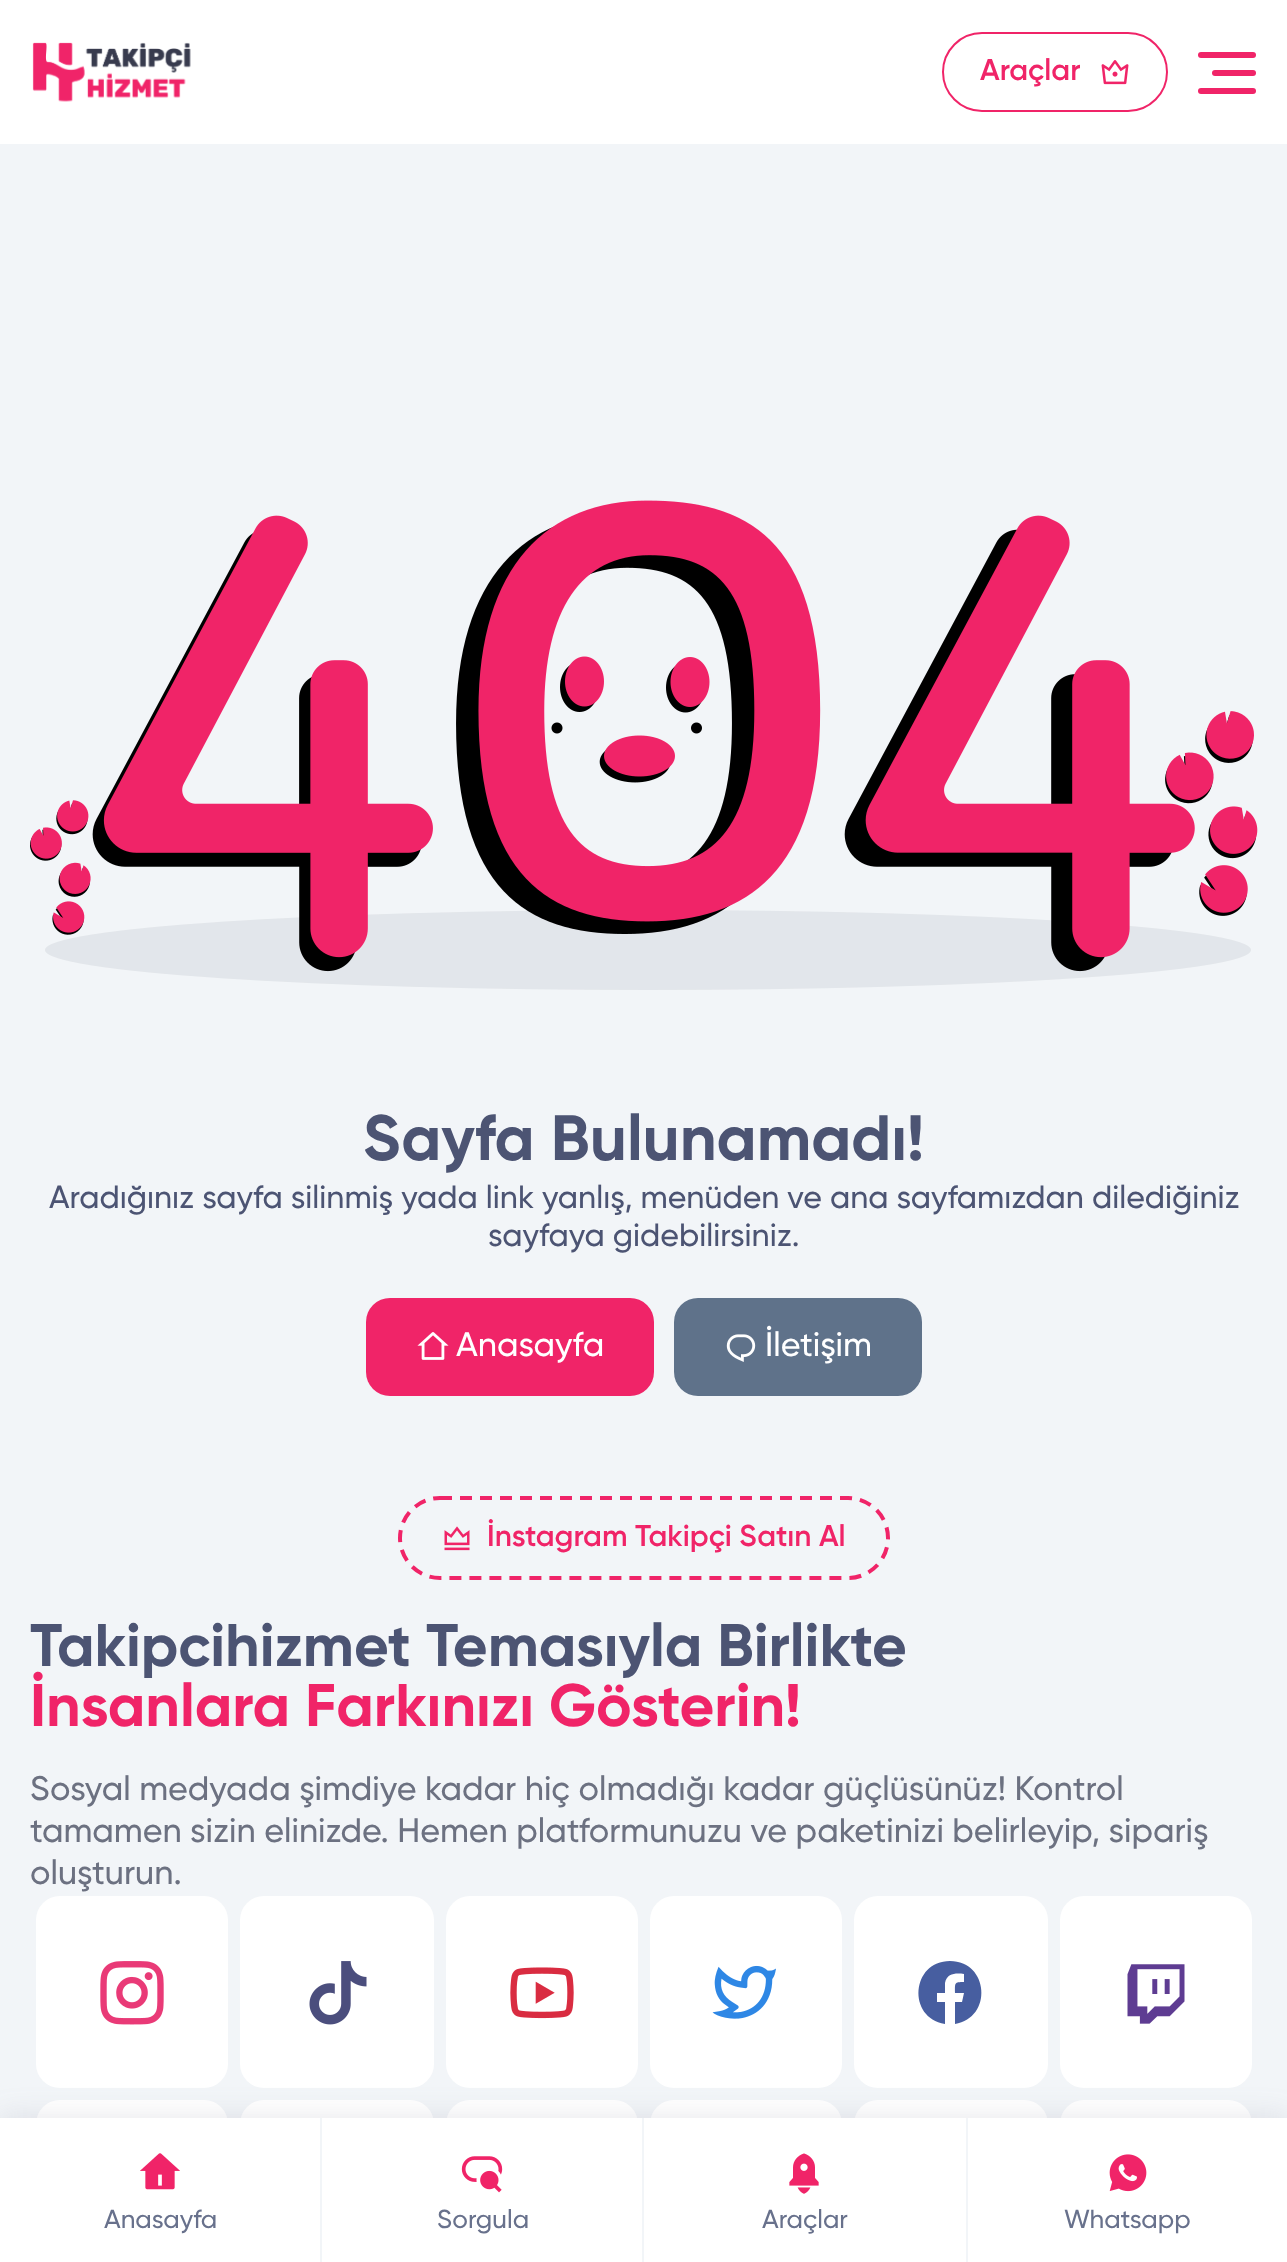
async function draw(canvas) {
	canvas.width = 1287;
	canvas.height = 2262;
	const c = canvas.getContext('2d');
	c.miterLimit = 4;
	c.fontKerning = 'normal';
	async function loadImage(src) {
		const img = new Image();
		img.src = src;
		await img.decode();
		return img;
	}

	c.fillStyle = '#f2f5f8';
	c.fillRect(0, 0, 1287, 2262);
	c.fillStyle = '#fff';
	c.fillRect(0, 0, 1287, 144);
	c.drawImage(await loadImage('img1.png'), 32, 42, 159, 60);
	c.beginPath();
	c.roundRect(943, 33, 224, 78, 39);
	c.strokeStyle = '#f02468';
	c.lineWidth = 2;
	c.stroke();
	c.font = '600 30px Gilroy';
	c.fillStyle = '#f02468';
	c.fillText('Araçlar', 980, 80);
	c.drawImage(await loadImage('img2.png'), 1101, 60, 28, 25);
	c.beginPath();
	c.roundRect(1198, 52, 58, 6, 3);
	c.fill();
	c.beginPath();
	c.roundRect(1212, 70, 44, 6, 3);
	c.fill();
	c.beginPath();
	c.roundRect(1198, 88, 58, 6, 3);
	c.fill();
	c.drawImage(await loadImage('img3.png'), 30, 500, 1228, 490);
	c.font = 'bold 64px Gilroy';
	c.fillStyle = '#4c5473';
	c.fillText('Sayfa Bulunamadı!', 363, 1160);
	c.font = '500 32px Gilroy';
	c.fillText('Aradığınız sayfa silinmiş yada link yanlış, menüden ve ana sayfamızdan dilediğiniz', 49, 1208);
	c.fillText('sayfaya gidebilirsiniz.', 488, 1246);
	c.fillStyle = '#f02468';
	c.beginPath();
	c.roundRect(366, 1298, 288, 98, 24);
	c.fill();
	c.drawImage(await loadImage('img4.png'), 417, 1332, 32, 28);
	c.font = '500 34px Gilroy';
	c.fillStyle = '#fff';
	c.fillText('Anasayfa', 456, 1356);
	c.fillStyle = '#5f728a';
	c.beginPath();
	c.roundRect(674, 1298, 248, 98, 24);
	c.fill();
	c.drawImage(await loadImage('img5.png'), 726, 1334, 30, 28);
	c.fillStyle = '#fff';
	c.fillText('İletişim', 765, 1356);
	c.beginPath();
	c.moveTo(440, 1498);
	c.lineTo(848, 1498);
	c.bezierCurveTo(870, 1498, 888, 1516, 888, 1538);
	c.bezierCurveTo(888, 1560, 870, 1578, 848, 1578);
	c.lineTo(440, 1578);
	c.bezierCurveTo(418, 1578, 400, 1560, 400, 1538);
	c.bezierCurveTo(400, 1516, 418, 1498, 440, 1498);
	c.closePath();
	c.lineWidth = 4;
	c.setLineDash([12, 8]);
	c.stroke();
	c.drawImage(await loadImage('img6.png'), 444, 1526, 26, 25);
	c.font = '600 30px Gilroy';
	c.fillStyle = '#f02468';
	c.fillText('İnstagram Takipçi Satın Al', 487, 1546);
	c.font = 'bold 60px Gilroy';
	c.fillStyle = '#4c5473';
	c.fillText('Takipcihizmet Temasıyla Birlikte', 30, 1666);
	c.fillStyle = '#f02468';
	c.fillText('İnsanlara Farkınızı Gösterin!', 30, 1726);
	c.font = '500 34px Gilroy';
	c.fillStyle = '#6c7181';
	for (const [text, x, y] of [
		['Sosyal medyada şimdiye kadar hiç olmadığı kadar güçlüsünüz! Kontrol', 30, 1800],
		['tamamen sizin elinizde. Hemen platformunuzu ve paketinizi belirleyip, sipariş', 30, 1842],
		['oluşturun.', 30, 1884],
	]) {
		c.fillText(text, x, y);
	}
	c.fillStyle = '#fff';
	c.beginPath();
	c.roundRect(36, 1896, 192, 192, 24);
	c.fill();
	c.drawImage(await loadImage('img7.png'), 100, 1961, 64, 64);
	c.beginPath();
	c.roundRect(240, 1896, 194, 192, 24);
	c.fill();
	c.drawImage(await loadImage('img8.png'), 309, 1961, 58, 64);
	c.beginPath();
	c.roundRect(446, 1896, 192, 192, 24);
	c.fill();
	c.drawImage(await loadImage('img9.png'), 510, 1967, 64, 52);
	c.beginPath();
	c.roundRect(650, 1896, 192, 192, 24);
	c.fill();
	c.drawImage(await loadImage('img10.png'), 712, 1965, 64, 54);
	c.beginPath();
	c.roundRect(854, 1896, 194, 192, 24);
	c.fill();
	c.fillStyle = '#475ea0';
	c.beginPath();
	c.moveTo(950, 1961);
	c.bezierCurveTo(911, 1961, 907, 2018, 945, 2024);
	c.lineTo(945, 2002);
	c.lineTo(937, 2002);
	c.lineTo(937, 1993);
	c.lineTo(945, 1993);
	c.lineTo(945, 1983);
	c.bezierCurveTo(947, 1973, 956, 1973, 964, 1974);
	c.lineTo(964, 1982);
	c.bezierCurveTo(954, 1982, 955, 1983, 955, 1993);
	c.lineTo(964, 1993);
	c.lineTo(962, 2002);
	c.lineTo(955, 2002);
	c.lineTo(955, 2024);
	c.bezierCurveTo(993, 2018, 989, 1961, 950, 1961);
	c.closePath();
	c.fill();
	c.fillStyle = '#fff';
	c.beginPath();
	c.roundRect(1060, 1896, 192, 192, 24);
	c.fill();
	c.drawImage(await loadImage('img11.png'), 1127, 1964, 58, 60);
	c.beginPath();
	c.roundRect(36, 2100, 192, 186, 24);
	c.fill();
	c.beginPath();
	c.roundRect(240, 2100, 194, 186, 24);
	c.fill();
	c.beginPath();
	c.roundRect(446, 2100, 192, 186, 24);
	c.fill();
	c.beginPath();
	c.roundRect(650, 2100, 192, 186, 24);
	c.fill();
	c.beginPath();
	c.roundRect(854, 2100, 194, 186, 24);
	c.fill();
	c.beginPath();
	c.roundRect(1060, 2100, 192, 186, 24);
	c.fill();
	c.fillStyle = '#6b6d852b';
	c.filter = 'blur(15px)';
	c.beginPath();
	c.rect(0, 2118, 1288, 144);
	c.fill();
	c.filter = 'none';
	c.fillStyle = '#fff';
	c.fillRect(0, 2118, 1287, 144);
	c.fillStyle = '#f2f5f8';
	c.fillRect(320, 2118, 2, 144);
	c.drawImage(await loadImage('img12.png'), 140, 2153, 40, 37);
	c.font = '500 26px Gilroy';
	c.fillStyle = '#68718c';
	c.fillText('Anasayfa', 104, 2228);
	c.fillStyle = '#f2f5f8';
	c.fillRect(642, 2118, 2, 144);
	c.drawImage(await loadImage('img13.png'), 461, 2156, 42, 37);
	c.fillStyle = '#68718c';
	c.fillText('Sorgula', 437, 2228);
	c.fillStyle = '#f2f5f8';
	c.fillRect(966, 2118, 2, 144);
	c.drawImage(await loadImage('img14.png'), 789, 2153, 30, 41);
	c.fillStyle = '#68718c';
	c.fillText('Araçlar', 762, 2228);
	c.drawImage(await loadImage('img15.png'), 1109, 2154, 38, 38);
	c.fillText('Whatsapp', 1064, 2228);
}

draw(document.querySelector('canvas'));
